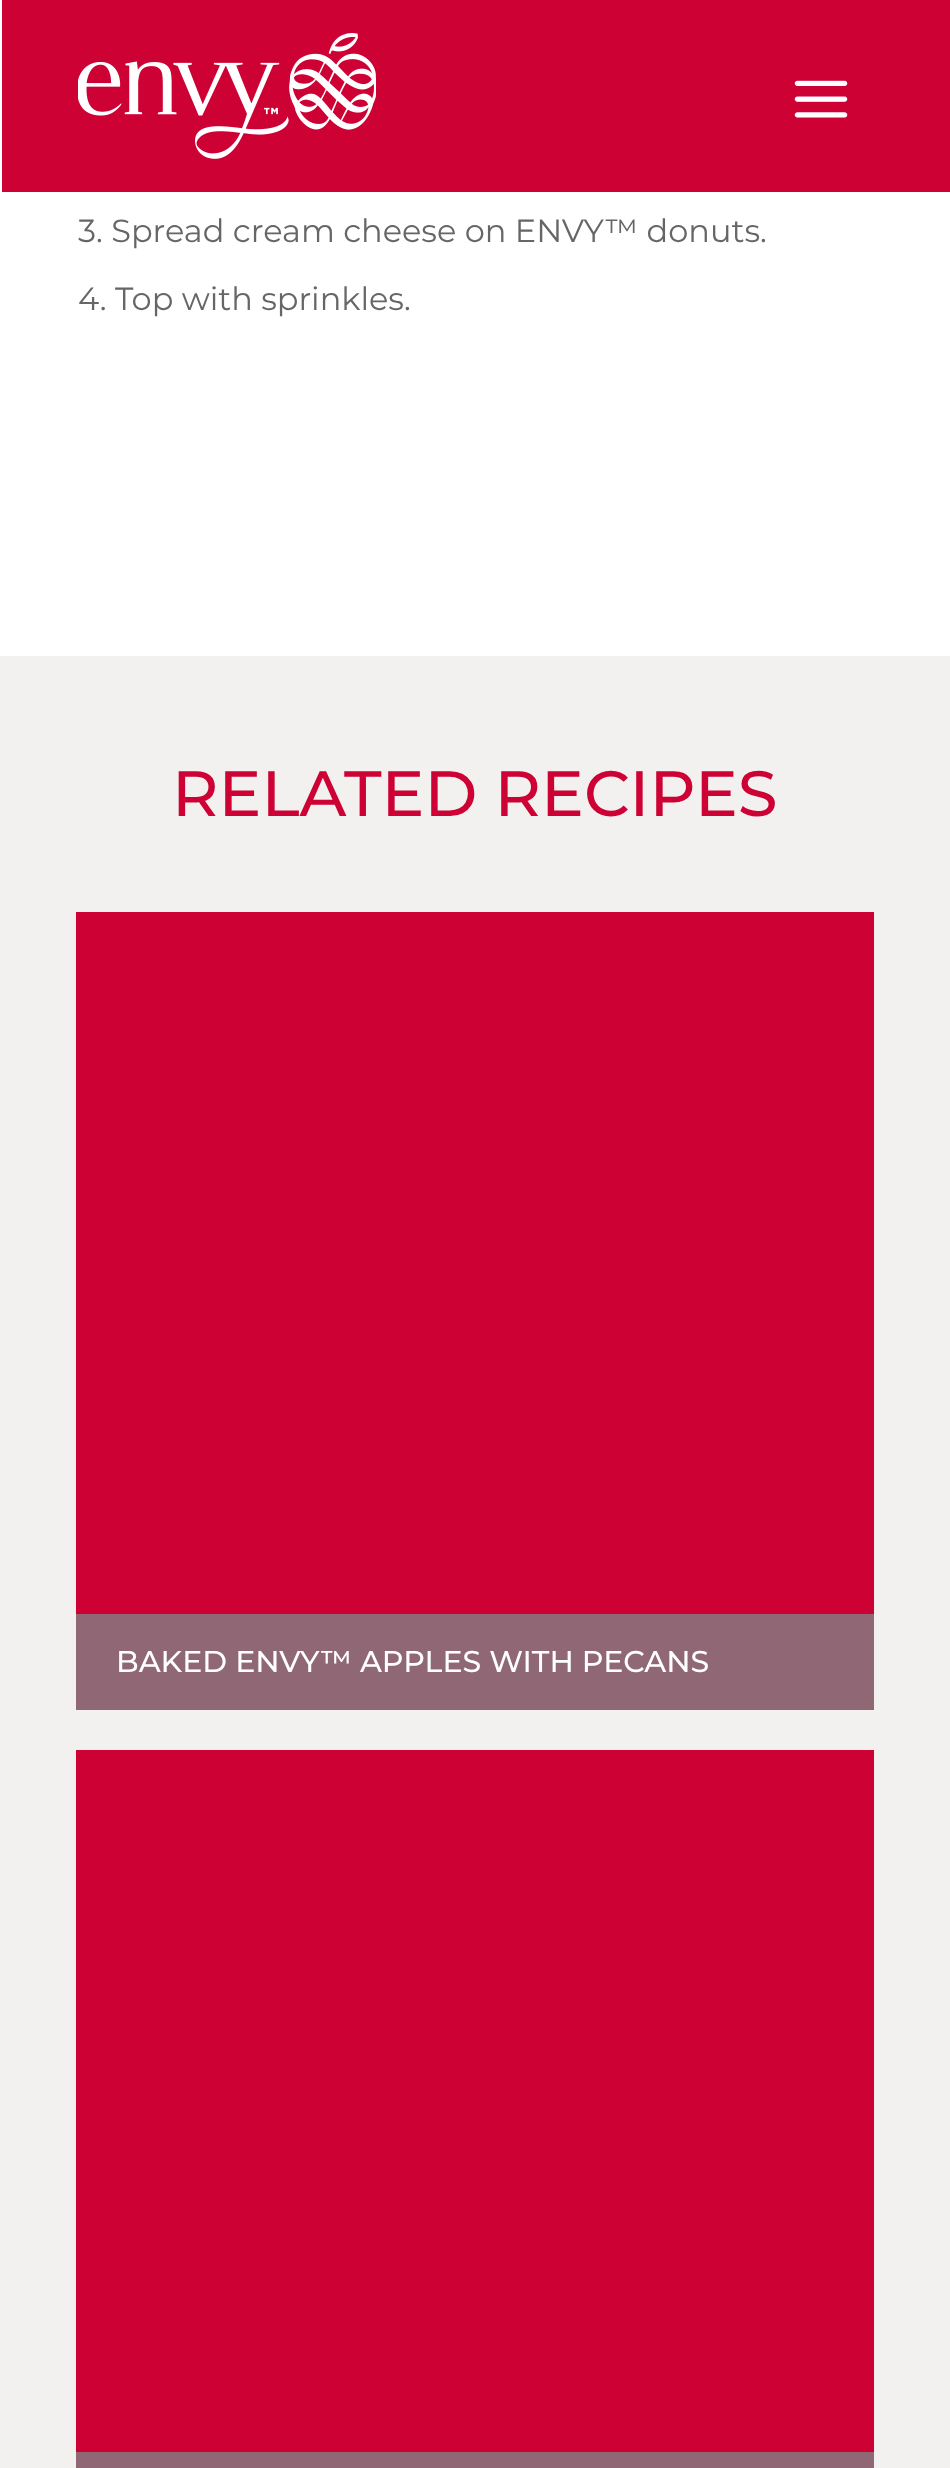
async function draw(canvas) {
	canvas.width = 950;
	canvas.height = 2468;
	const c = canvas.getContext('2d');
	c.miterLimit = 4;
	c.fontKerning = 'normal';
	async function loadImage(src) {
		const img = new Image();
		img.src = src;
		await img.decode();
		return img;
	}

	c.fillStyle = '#fff';
	c.fillRect(0, 0, 950, 2468);
	c.fillStyle = '#cd0134';
	c.fillRect(2, 0, 948, 192);
	c.drawImage(await loadImage('img1.png'), 78, 33, 298, 126);
	c.drawImage(await loadImage('img2.png'), 794, 80, 54, 38);
	c.font = '100 32px Montserrat';
	c.fillStyle = '#666';
	c.fillText('3. Spread cream cheese on ENVY™ donuts.', 78, 242);
	c.fillText('4. Top with sprinkles.', 78, 310);
	c.fillStyle = '#f2f1f0';
	c.fillRect(0, 656, 950, 1812);
	c.font = '100 64px "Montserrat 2"';
	c.fillStyle = '#cd0134';
	c.fillText('RELATED RECIPES', 172, 816);
	c.fillRect(76, 912, 798, 702);
	c.fillStyle = '#906875';
	c.fillRect(76, 1614, 798, 96);
	c.font = '100 30px "Montserrat 2"';
	c.fillStyle = '#fff';
	c.fillText('BAKED ENVY™ APPLES WITH PECANS', 116, 1672);
	c.fillStyle = '#cd0134';
	c.fillRect(76, 1750, 798, 702);
	c.fillStyle = '#906875';
	c.fillRect(76, 2452, 798, 16);
}

draw(document.querySelector('canvas'));
